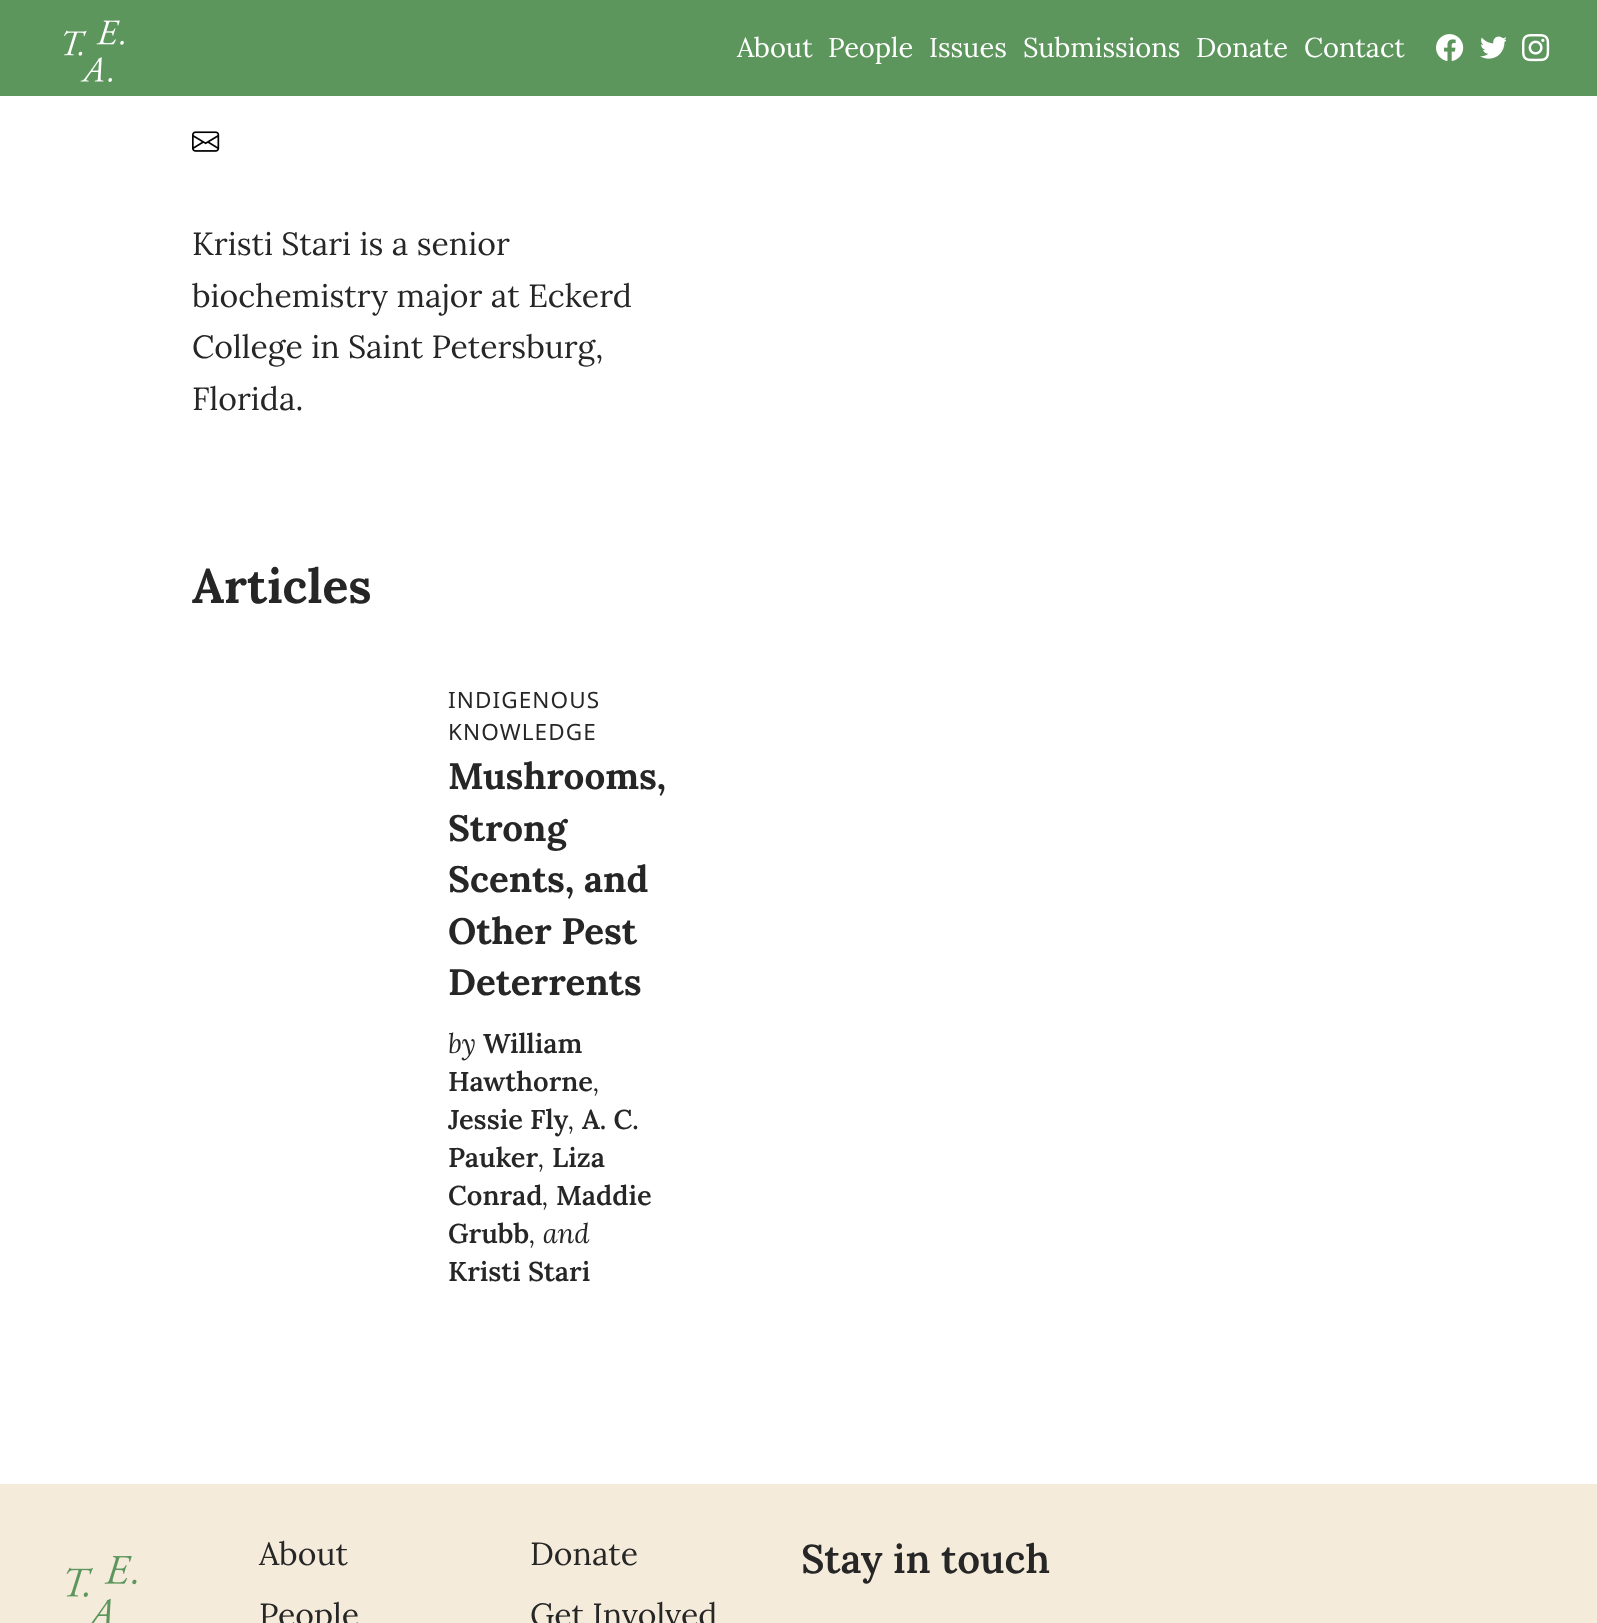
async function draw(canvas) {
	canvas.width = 1597;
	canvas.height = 1623;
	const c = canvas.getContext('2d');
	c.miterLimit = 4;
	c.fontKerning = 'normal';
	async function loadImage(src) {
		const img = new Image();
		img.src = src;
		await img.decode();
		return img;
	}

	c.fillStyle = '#fff';
	c.fillRect(0, 0, 1597, 1623);
	c.fillStyle = '#5d965d';
	c.fillRect(0, 0, 1597, 96);
	c.drawImage(await loadImage('img1.png'), 64, 20, 60, 62);
	c.font = '27.25px Lora';
	c.fillStyle = '#fff';
	for (const [text, x, y] of [
		['About', 737, 57],
		['People', 828, 57],
		['Issues', 929, 57],
		['Submissions', 1023, 57],
		['Donate', 1196, 57],
		['Contact', 1304, 57],
	]) {
		c.fillText(text, x, y);
	}
	c.drawImage(await loadImage('img2.png'), 1436, 34, 28, 27);
	c.drawImage(await loadImage('img3.png'), 1480, 36, 26, 23);
	c.drawImage(await loadImage('img4.png'), 1522, 34, 28, 28);
	c.drawImage(await loadImage('img5.png'), 192, 131, 28, 21);
	c.font = '32px Lora';
	c.fillStyle = '#262626';
	for (const [text, x, y] of [
		['Kristi Stari is a senior', 192, 255],
		['biochemistry major at Eckerd', 192, 307],
		['College in Saint Petersburg,', 192, 358],
		['Florida.', 192, 410],
	]) {
		c.fillText(text, x, y);
	}
	c.font = 'bold 48px Lora';
	c.fillText('Articles', 192, 603);
	c.letterSpacing = '1.1px';
	c.font = '22.5px Noto Sans';
	c.fillText('INDIGENOUS', 448, 708);
	c.fillText('KNOWLEDGE', 448, 740);
	c.letterSpacing = '0px';
	c.font = 'bold 36.75px Lora';
	for (const [text, x, y] of [
		['Mushrooms,', 448, 789],
		['Strong', 448, 841],
		['Scents, and', 448, 892],
		['Other Pest', 448, 944],
		['Deterrents', 448, 995],
	]) {
		c.fillText(text, x, y);
	}
	c.font = 'italic 27.25px Lora';
	c.fillText('by', 448, 1053);
	c.font = '600 27.25px Lora';
	c.fillText('William', 483, 1053);
	c.fillText('Hawthorne', 448, 1091);
	c.font = 'italic 27.25px Lora';
	c.fillText(',', 593, 1091);
	c.font = '600 27.25px Lora';
	c.fillText('Jessie Fly', 448, 1129);
	c.font = 'italic 27.25px Lora';
	c.fillText(',', 568, 1129);
	c.font = '600 27.25px Lora';
	c.fillText('A. C.', 582, 1129);
	c.fillText('Pauker', 448, 1167);
	c.font = 'italic 27.25px Lora';
	c.fillText(',', 538, 1167);
	c.font = '600 27.25px Lora';
	c.fillText('Liza', 552, 1167);
	c.fillText('Conrad', 448, 1205);
	c.font = 'italic 27.25px Lora';
	c.fillText(',', 542, 1205);
	c.font = '600 27.25px Lora';
	c.fillText('Maddie', 556, 1205);
	c.fillText('Grubb', 448, 1243);
	c.font = 'italic 27.25px Lora';
	c.fillText(', and', 529, 1243);
	c.font = '600 27.25px Lora';
	c.fillText('Kristi Stari', 448, 1281);
	c.fillStyle = '#f4ebdb';
	c.fillRect(0, 1484, 1597, 139);
	c.drawImage(await loadImage('img6.png'), 66, 1556, 71, 67);
	c.font = '32px Lora';
	c.fillStyle = '#262626';
	for (const [text, x, y] of [
		['About', 259, 1565],
		['People', 259, 1626],
		['Donate', 530, 1565],
		['Get Involved', 530, 1626],
	]) {
		c.fillText(text, x, y);
	}
	c.font = '600 40px Lora';
	c.fillText('Stay in touch', 801, 1573);
}

draw(document.querySelector('canvas'));
